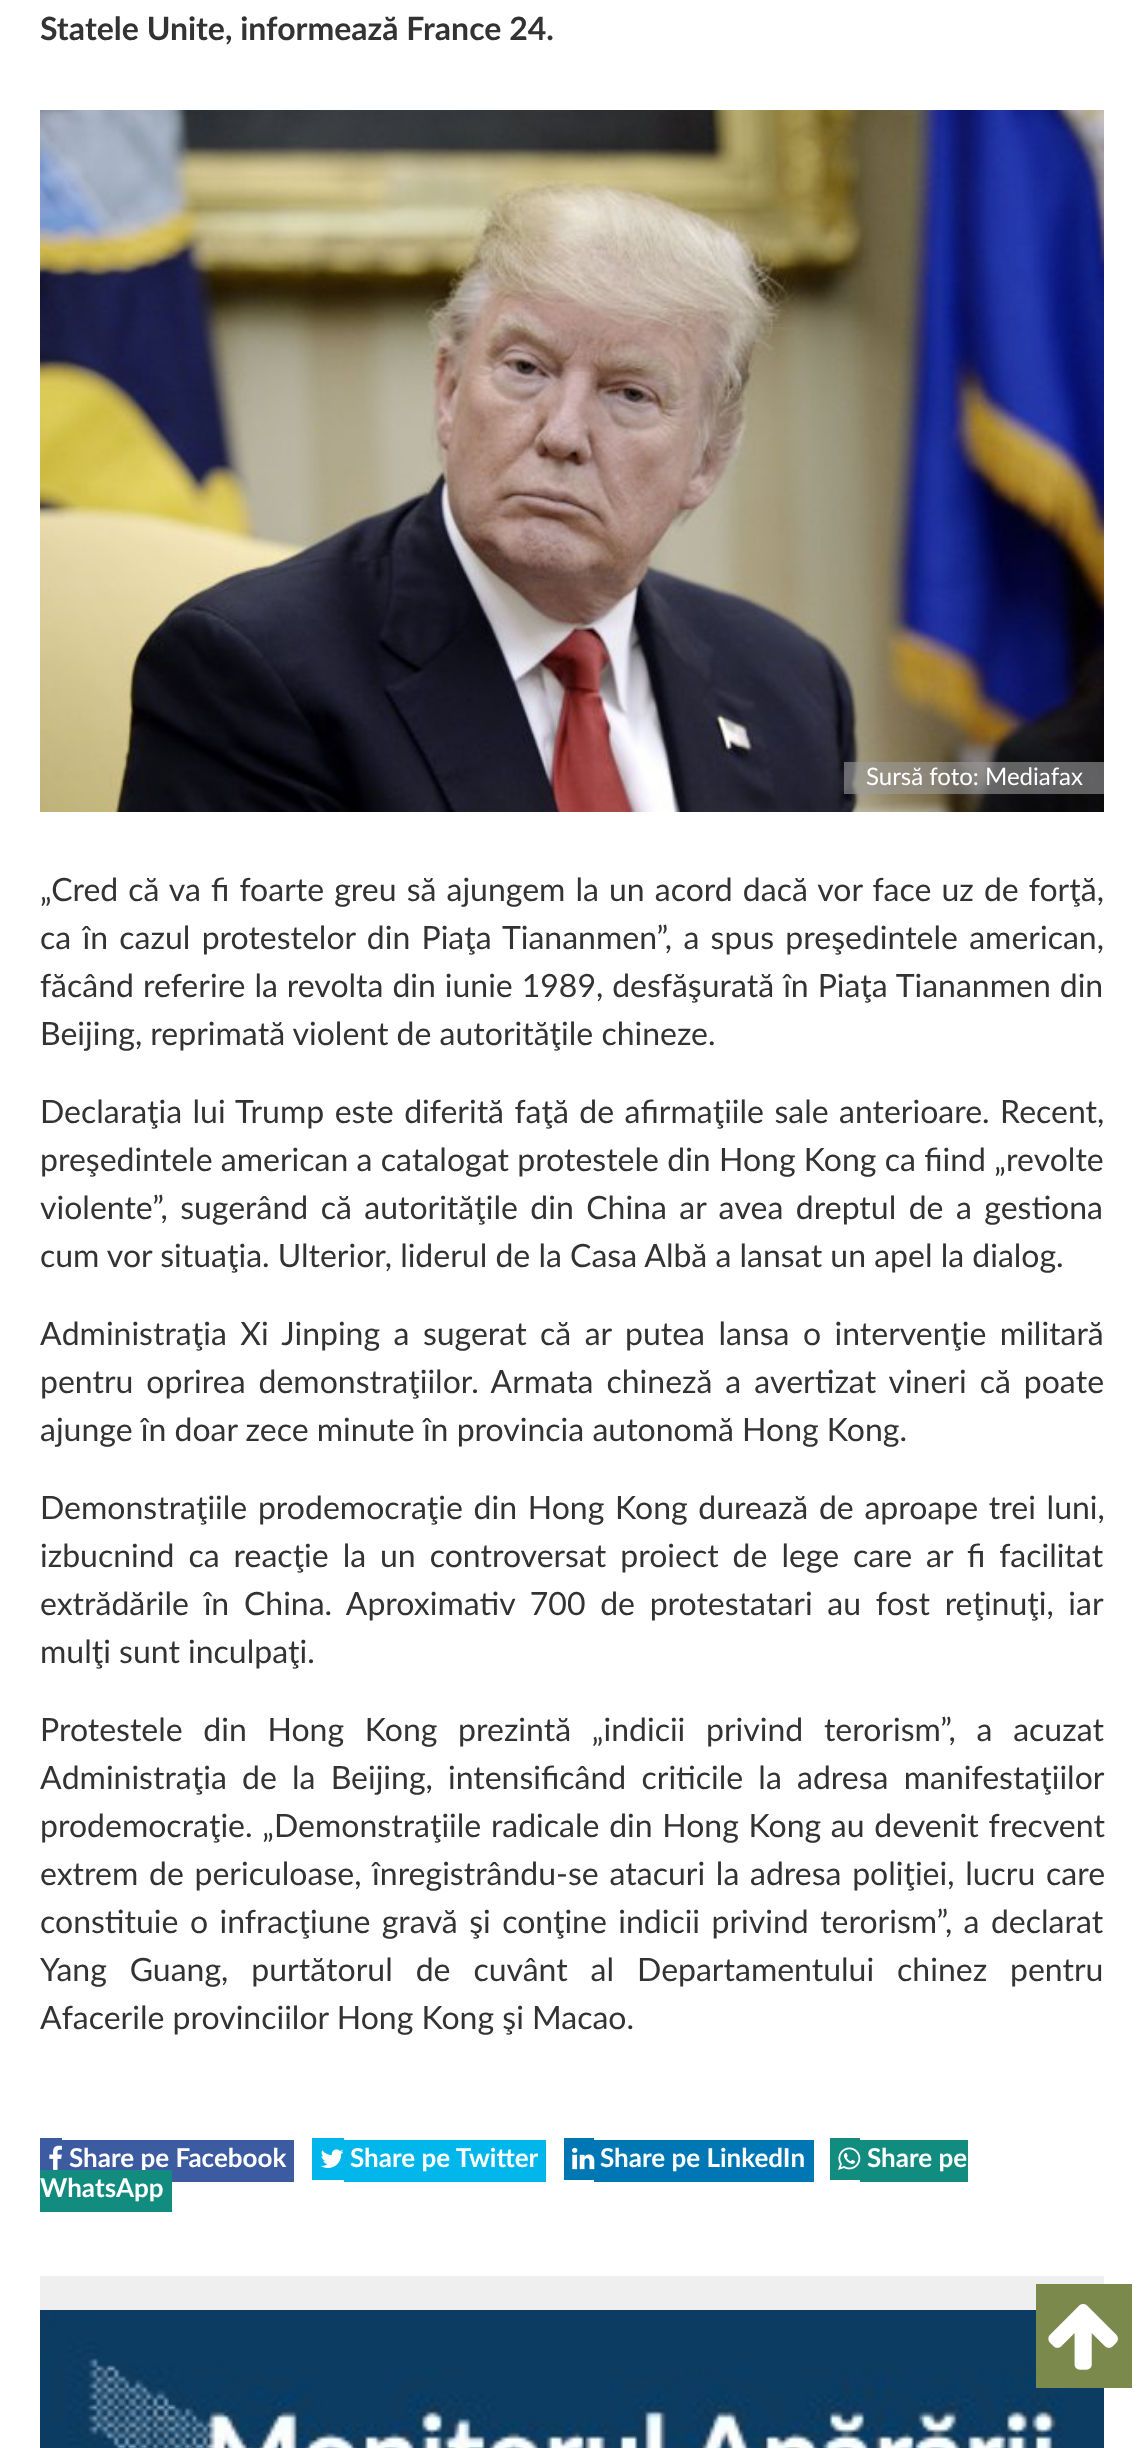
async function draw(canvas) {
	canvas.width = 1143;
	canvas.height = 2448;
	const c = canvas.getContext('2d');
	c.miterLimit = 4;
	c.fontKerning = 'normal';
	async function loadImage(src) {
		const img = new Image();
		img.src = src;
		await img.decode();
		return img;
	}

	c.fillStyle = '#fff';
	c.fillRect(0, 0, 1143, 2448);
	c.font = 'bold 32px Lato';
	c.fillStyle = '#333';
	c.fillText('Statele Unite, informează France 24.', 40, 40);
	c.drawImage(await loadImage('img1.png'), 40, 110, 1064, 702);
	c.fillStyle = '#9b9b9b99';
	c.fillRect(844, 762, 260, 32);
	c.font = '24px Lato';
	c.fillStyle = '#fff';
	c.fillText('Sursă foto: Mediafax', 866, 785);
	c.wordSpacing = '1.9px';
	c.font = '32px Lato';
	c.fillStyle = '#333';
	c.fillText('„Cred că va fi foarte greu să ajungem la un acord dacă vor face uz de forţă,', 40, 901);
	c.wordSpacing = '3.1px';
	c.fillText('ca în cazul protestelor din Piaţa Tiananmen”, a spus preşedintele american,', 40, 949);
	c.wordSpacing = '0.75px';
	c.fillText('făcând referire la revolta din iunie 1989, desfăşurată în Piaţa Tiananmen din', 40, 997);
	c.wordSpacing = '0px';
	c.fillText('Beijing, reprimată violent de autorităţile chineze.', 40, 1045);
	c.wordSpacing = '2.25px';
	c.fillText('Declaraţia lui Trump este diferită faţă de afirmaţiile sale anterioare. Recent,', 40, 1123);
	c.wordSpacing = '0.1px';
	c.fillText('preşedintele american a catalogat protestele din Hong Kong ca fiind „revolte', 40, 1171);
	c.wordSpacing = '4.25px';
	c.fillText('violente”, sugerând că autorităţile din China ar avea dreptul de a gestiona', 40, 1219);
	c.wordSpacing = '0px';
	c.fillText('cum vor situaţia. Ulterior, liderul de la Casa Albă a lansat un apel la dialog.', 40, 1267);
	c.wordSpacing = '5.25px';
	c.fillText('Administraţia Xi Jinping a sugerat că ar putea lansa o intervenţie militară', 40, 1345);
	c.wordSpacing = '4.75px';
	c.fillText('pentru oprirea demonstraţiilor. Armata chineză a avertizat vineri că poate', 40, 1393);
	c.wordSpacing = '0px';
	c.fillText('ajunge în doar zece minute în provincia autonomă Hong Kong.', 40, 1441);
	c.wordSpacing = '2.5px';
	c.fillText('Demonstraţiile prodemocraţie din Hong Kong durează de aproape trei luni,', 40, 1519);
	c.wordSpacing = '5.75px';
	c.fillText('izbucnind ca reacţie la un controversat proiect de lege care ar fi facilitat', 40, 1567);
	c.wordSpacing = '6.5px';
	c.fillText('extrădările în China. Aproximativ 700 de protestatari au fost reţinuţi, iar', 40, 1615);
	c.wordSpacing = '0px';
	c.fillText('mulţi sunt inculpaţi.', 40, 1663);
	c.wordSpacing = '12.5px';
	c.fillText('Protestele din Hong Kong prezintă „indicii privind terorism”, a acuzat', 40, 1741);
	c.wordSpacing = '7px';
	c.fillText('Administraţia de la Beijing, intensificând criticile la adresa manifestaţiilor', 40, 1789);
	c.wordSpacing = '1.5px';
	c.fillText('prodemocraţie. „Demonstraţiile radicale din Hong Kong au devenit frecvent', 40, 1837);
	c.wordSpacing = '2.5px';
	c.fillText('extrem de periculoase, înregistrându-se atacuri la adresa poliţiei, lucru care', 40, 1885);
	c.wordSpacing = '3.25px';
	c.fillText('constituie o infracţiune gravă şi conţine indicii privind terorism”, a declarat', 40, 1933);
	c.wordSpacing = '14.75px';
	c.fillText('Yang Guang, purtătorul de cuvânt al Departamentului chinez pentru', 40, 1981);
	c.wordSpacing = '0px';
	c.fillText('Afacerile provinciilor Hong Kong şi Macao.', 40, 2029);
	for (const [x, y, w, h, color] of [
		[830, 2138, 30, 42, '#128c7e'],
		[860, 2140, 108, 42, '#128c7e'],
		[62, 2140, 232, 42, '#3c5ba0'],
	]) {
		c.fillStyle = color;
		c.fillRect(x, y, w, h);
	}
	c.font = 'bold 26px Lato';
	c.fillStyle = '#fff';
	c.fillText('Share pe Facebook', 69, 2167);
	c.fillStyle = '#128c7e';
	c.fillRect(40, 2170, 132, 42);
	c.drawImage(await loadImage('img2.png'), 838, 2147, 23, 23);
	c.fillStyle = '#fff';
	c.fillText('Share pe', 867, 2167);
	c.fillText('WhatsApp', 40, 2197);
	c.fillStyle = '#3c5ba0';
	c.fillRect(40, 2138, 22, 32);
	c.drawImage(await loadImage('img3.png'), 49, 2145, 13, 25);
	c.fillStyle = '#00b6ea';
	c.fillRect(312, 2138, 32, 42);
	c.fillRect(344, 2140, 202, 42);
	c.drawImage(await loadImage('img4.png'), 320, 2149, 24, 19);
	c.fillStyle = '#fff';
	c.fillText('Share pe Twitter', 350, 2167);
	c.fillStyle = '#0077b5';
	c.fillRect(564, 2138, 30, 42);
	c.fillRect(594, 2140, 220, 42);
	c.drawImage(await loadImage('img5.png'), 572, 2147, 23, 23);
	c.fillStyle = '#fff';
	c.fillText('Share pe LinkedIn', 600, 2167);
	c.fillStyle = '#efefef';
	c.fillRect(40, 2276, 1064, 34);
	c.drawImage(await loadImage('img6.png'), 40, 2310, 1064, 138);
	c.fillStyle = '#7b894c';
	c.fillRect(1036, 2284, 96, 104);
	c.drawImage(await loadImage('img7.png'), 1048, 2304, 70, 66);
}

draw(document.querySelector('canvas'));
